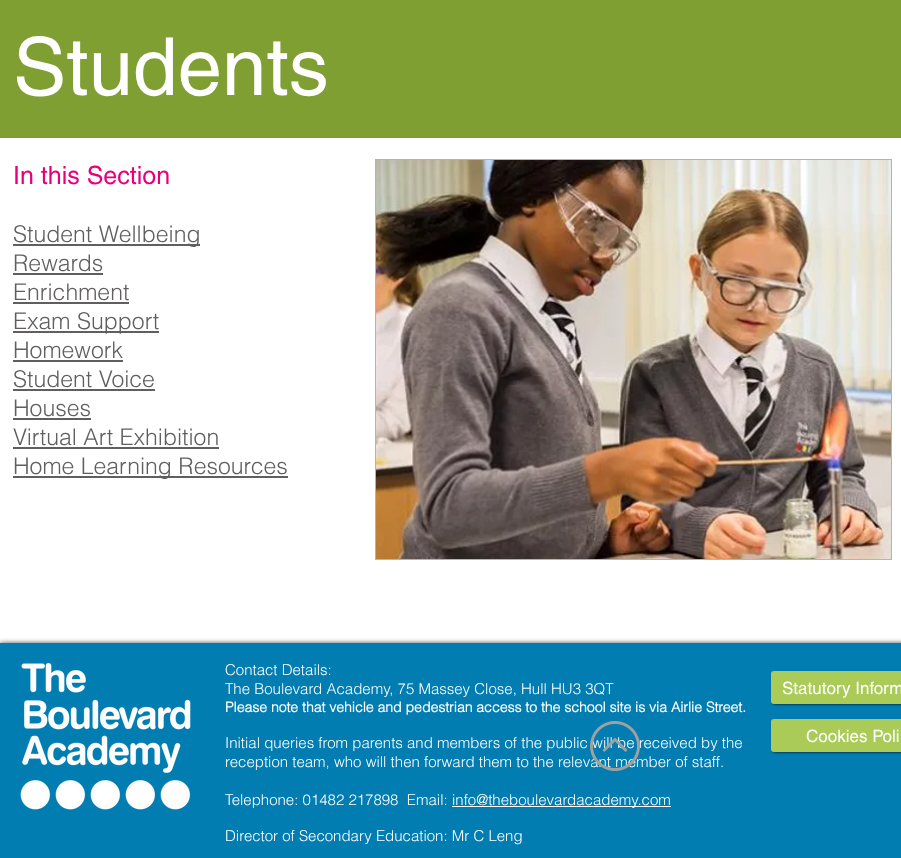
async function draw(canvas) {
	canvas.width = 901;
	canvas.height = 858;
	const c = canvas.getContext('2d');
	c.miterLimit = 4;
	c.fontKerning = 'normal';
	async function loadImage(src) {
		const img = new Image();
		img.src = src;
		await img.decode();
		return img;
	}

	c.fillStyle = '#fff';
	c.fillRect(0, 0, 901, 858);
	c.fillStyle = '#809f32';
	c.fillRect(0, 0, 901, 138);
	c.font = '80px helvetica';
	c.fillStyle = '#fff';
	c.fillText('Students', 13, 95);
	c.font = '25px helvetica';
	c.fillStyle = '#e6007e';
	c.fillText('In this Section', 13, 184);
	c.fillStyle = '#605e5e';
	c.fillRect(13, 244, 187, 2);
	c.font = '300 23px helvetica';
	c.fillText('Student Wellbeing', 13, 242);
	c.fillText('Rewards', 13, 271);
	c.fillRect(13, 273, 90, 2);
	c.fillText('Enrichment', 13, 300);
	c.fillRect(13, 302, 116, 2);
	c.fillRect(13, 331, 146, 2);
	c.fillText('Exam Support', 13, 329);
	c.fillText('Homework', 13, 358);
	c.fillRect(13, 360, 110, 2);
	c.fillText('Student Voice', 13, 387);
	c.fillRect(13, 389, 142, 2);
	c.fillText('Houses', 13, 416);
	c.fillRect(13, 418, 78, 2);
	c.fillText('Virtual Art Exhibition', 13, 445);
	c.fillRect(13, 447, 206, 2);
	c.fillRect(13, 476, 275, 2);
	c.fillText('Home Learning Resources', 13, 474);
	c.fillStyle = '#abcb59';
	c.fillRect(375, 159, 517, 401);
	c.drawImage(await loadImage('img1.png'), 376, 160, 515, 399);
	c.fillStyle = '#000000b3';
	c.filter = 'blur(2.5px)';
	c.beginPath();
	c.rect(0, 643, 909, 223);
	c.fill();
	c.filter = 'none';
	c.fillStyle = '#017db2';
	c.fillRect(0, 643, 901, 215);
	c.drawImage(await loadImage('img2.png'), 20, 663, 171, 147);
	c.font = '300 15px helvetica';
	c.fillStyle = '#fff';
	c.fillText('Contact Details:', 225, 675);
	c.fillText('The Boulevard Academy, 75 Massey Close, Hull HU3 3QT', 225, 694);
	c.font = 'bold 14px helvetica';
	c.fillText('Please note that vehicle and pedestrian access to the school site is via Airlie Street.', 225, 712);
	c.font = '300 15px helvetica';
	for (const [text, x, y] of [
		['Initial queries from parents and members of the public will be received by the', 225, 748],
		['reception team, who will then forward them to the relevant member of staff.', 225, 767],
		['Telephone: 01482 217898  Email:', 225, 805],
	]) {
		c.fillText(text, x, y);
	}
	c.fillRect(452, 806, 219, 1);
	c.fillText('info@theboulevardacademy.com', 452, 805);
	c.fillText('Director of Secondary Education: Mr C Leng', 225, 841);
	c.fillStyle = '#000';
	c.filter = 'blur(1.5px)';
	c.beginPath();
	c.roundRect(773, 673, 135, 31, 2);
	c.fill();
	c.filter = 'none';
	c.fillStyle = '#abcb59';
	c.beginPath();
	c.roundRect(771, 671, 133, 33, 3);
	c.fill();
	c.font = '17px helvetica';
	c.fillStyle = '#fff';
	c.fillText('Statutory Inform', 782, 694);
	c.fillStyle = '#000';
	c.filter = 'blur(1.5px)';
	c.beginPath();
	c.roundRect(773, 721, 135, 31, 2);
	c.fill();
	c.filter = 'none';
	c.fillStyle = '#abcb59';
	c.beginPath();
	c.roundRect(771, 719, 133, 33, 3);
	c.fill();
	c.fillStyle = '#fff';
	c.fillText('Cookies Poli', 806, 742);
	c.drawImage(await loadImage('img3.png'), 590, 721, 50, 50);
}

draw(document.querySelector('canvas'));
